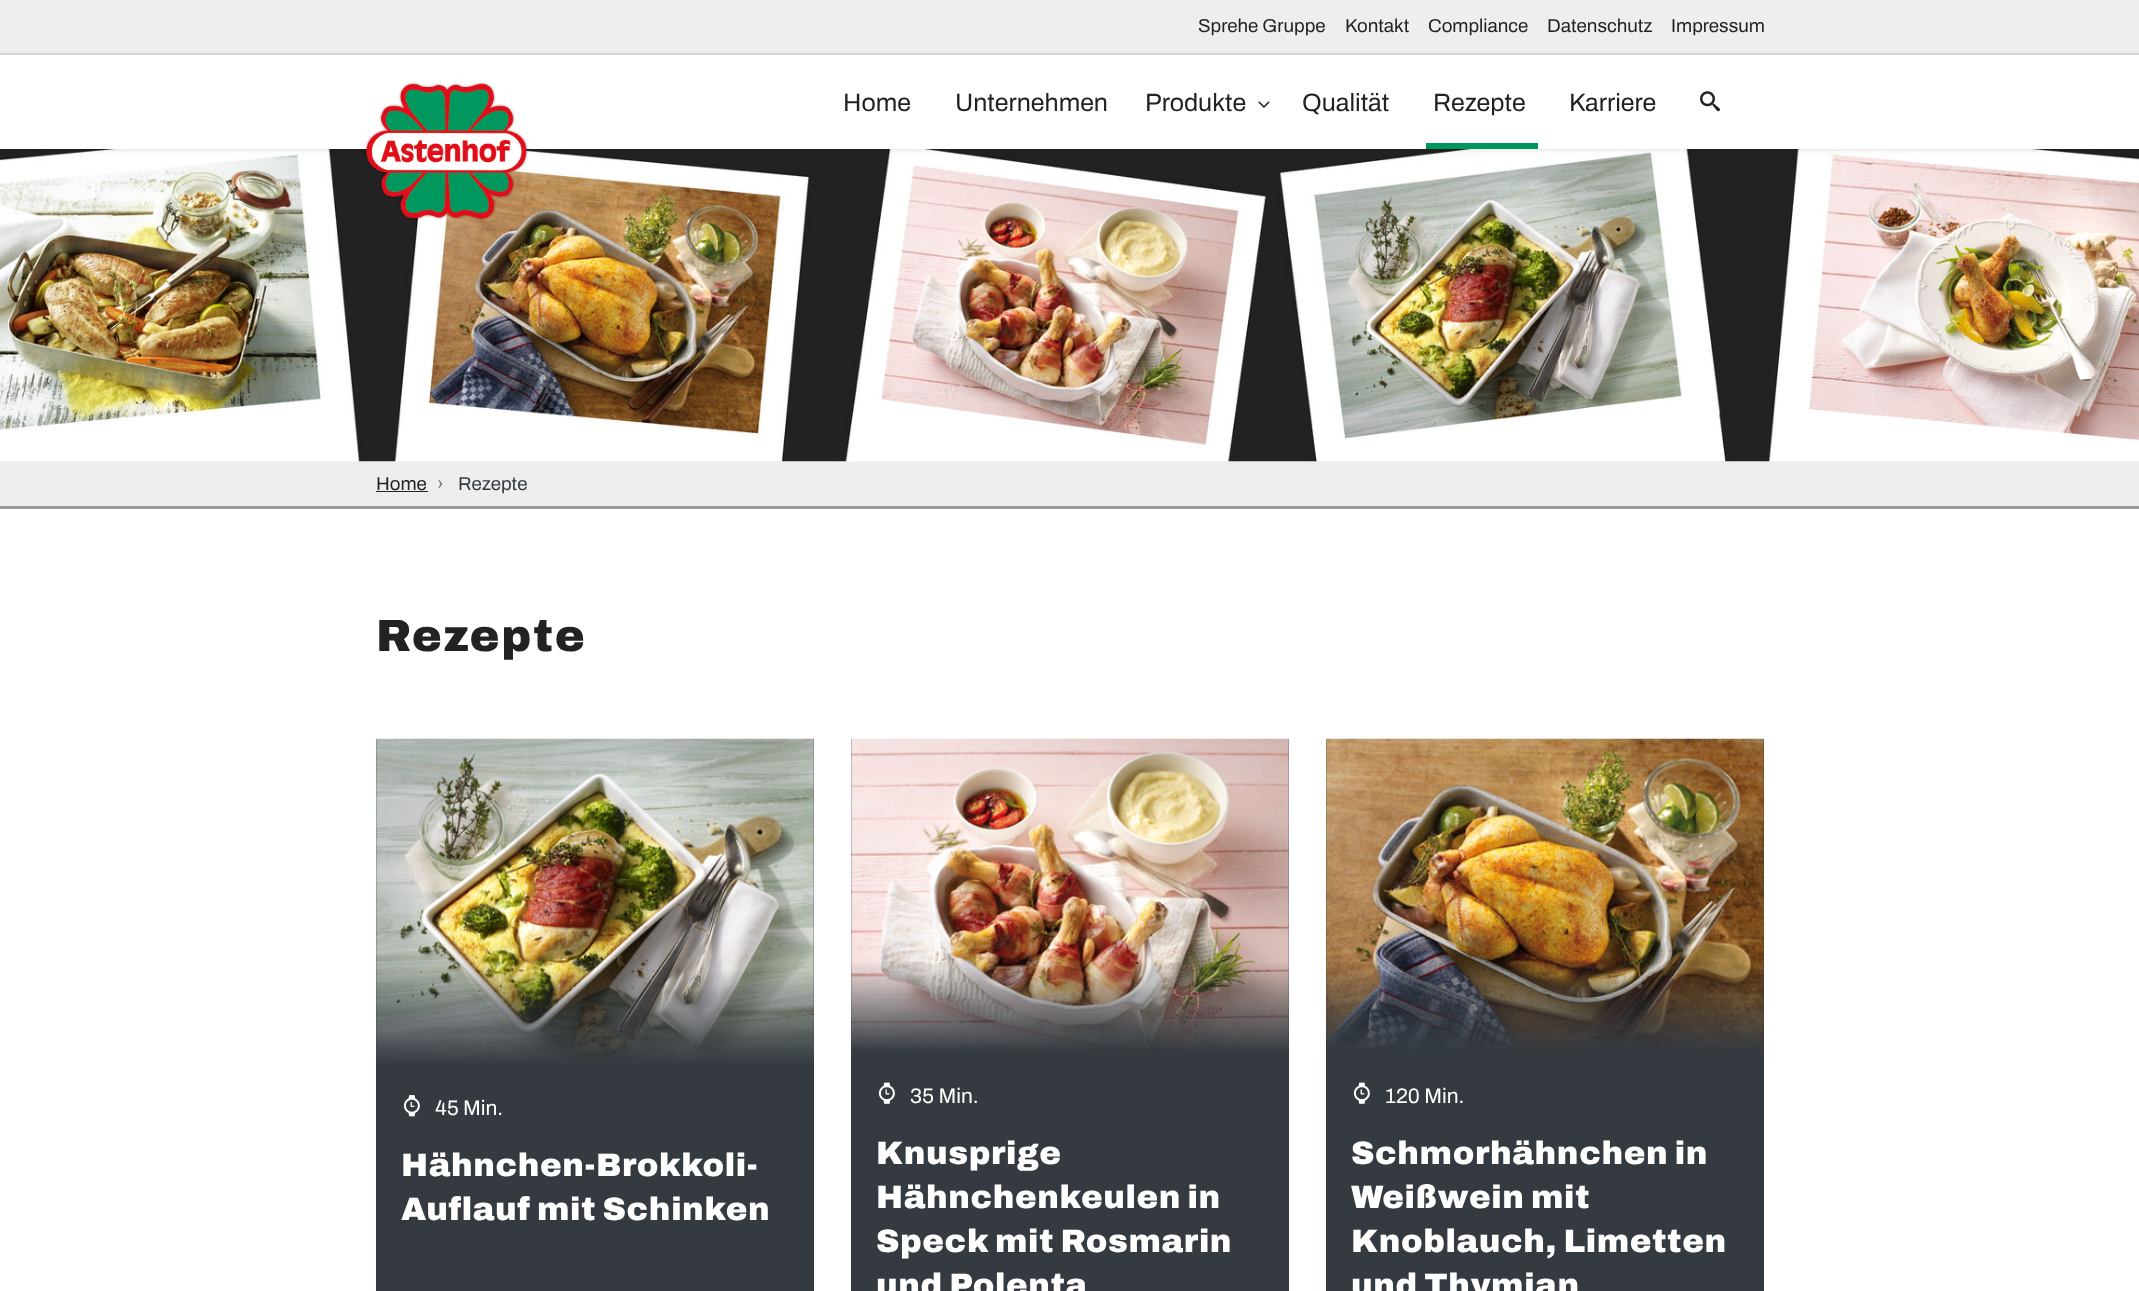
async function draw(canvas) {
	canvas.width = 2139;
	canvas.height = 1291;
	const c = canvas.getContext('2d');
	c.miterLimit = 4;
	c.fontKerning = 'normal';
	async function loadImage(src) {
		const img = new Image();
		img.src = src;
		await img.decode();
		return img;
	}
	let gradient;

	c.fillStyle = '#fff';
	c.fillRect(0, 0, 2139, 1291);
	c.fillStyle = '#eee';
	c.fillRect(0, 461, 2139, 45);
	c.drawImage(await loadImage('img4.png'), 0, 149, 2139, 313);
	c.fillStyle = '#00000026';
	c.filter = 'blur(3px)';
	c.beginPath();
	c.rect(0, 0, 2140, 149);
	c.fill();
	c.filter = 'none';
	c.fillStyle = '#eee';
	c.fillRect(0, 0, 2139, 53);
	c.fillStyle = '#d5d5d5';
	c.fillRect(0, 53, 2139, 2);
	c.font = '18.75px Archivo';
	c.fillStyle = '#222';
	for (const [text, x, y] of [
		['Sprehe Gruppe', 1198, 32],
		['Kontakt', 1345, 32],
		['Compliance', 1428, 32],
		['Datenschutz', 1547, 32],
		['Impressum', 1671, 32],
	]) {
		c.fillText(text, x, y);
	}
	c.fillStyle = '#fff';
	c.fillRect(0, 55, 2139, 94);
	c.drawImage(await loadImage('img1.png'), 364, 82, 165, 139);
	c.font = '25px Archivo';
	c.fillStyle = '#222';
	for (const [text, x, y] of [
		['Home', 843, 111],
		['Unternehmen', 955, 111],
		['Produkte', 1145, 111],
	]) {
		c.fillText(text, x, y);
	}
	c.drawImage(await loadImage('img2.png'), 1258, 101, 12, 7);
	c.fillText('Qualität', 1302, 111);
	c.fillText('Rezepte', 1433, 111);
	c.fillStyle = '#00975f';
	c.fillRect(1426, 143, 112, 6);
	c.fillStyle = '#222';
	c.fillText('Karriere', 1569, 111);
	c.drawImage(await loadImage('img3.png'), 1700, 91, 20, 21);
	c.fillStyle = '#999';
	c.fillRect(0, 506, 2139, 3);
	c.font = '18.75px Archivo';
	c.fillStyle = '#222';
	c.fillText('Home', 376, 490);
	c.fillRect(376, 491, 52, 1);
	c.fillStyle = '#6c757d';
	c.fillText('›', 437, 490);
	c.fillStyle = '#343a40';
	c.fillText('Rezepte', 458, 490);
	c.letterSpacing = '1.75px';
	c.font = '900 45px Archivo';
	c.fillStyle = '#222';
	c.fillText('Rezepte', 376, 651);
	c.fillStyle = '#343a40';
	c.fillRect(376, 739, 438, 552);
	c.drawImage(await loadImage('img5.png'), 376, 738, 438, 326);
	gradient = c.createLinearGradient(595, 739, 595, 1068);
	gradient.addColorStop(0.7, '#343a4000');
	gradient.addColorStop(0.99, '#343a40');
	c.fillStyle = gradient;
	c.fillRect(376, 971, 438, 93);
	c.drawImage(await loadImage('img6.png'), 403, 1095, 17, 22);
	c.letterSpacing = '0px';
	c.font = '21px Archivo';
	c.fillStyle = '#fff';
	c.fillText('45 Min.', 435, 1115);
	c.letterSpacing = '0.6px';
	c.font = '900 32.5px Archivo';
	c.fillText('Hähnchen-Brokkoli-', 401, 1176);
	c.fillText('Auflauf mit Schinken', 401, 1220);
	c.fillStyle = '#343a40';
	c.fillRect(851, 739, 438, 552);
	c.drawImage(await loadImage('img7.png'), 851, 738, 438, 313);
	gradient = c.createLinearGradient(1070, 739, 1070, 1055);
	gradient.addColorStop(0.7, '#343a4000');
	gradient.addColorStop(0.99, '#343a40');
	c.fillStyle = gradient;
	c.fillRect(851, 962, 438, 89);
	c.drawImage(await loadImage('img8.png'), 878, 1082, 17, 22);
	c.letterSpacing = '0px';
	c.font = '21px Archivo';
	c.fillStyle = '#fff';
	c.fillText('35 Min.', 910, 1103);
	c.letterSpacing = '0.6px';
	c.font = '900 32.5px Archivo';
	for (const [text, x, y] of [
		['Knusprige', 876, 1164],
		['Hähnchenkeulen in', 876, 1208],
		['Speck mit Rosmarin', 876, 1252],
		['und Polenta', 876, 1296],
	]) {
		c.fillText(text, x, y);
	}
	c.fillStyle = '#343a40';
	c.fillRect(1326, 739, 438, 552);
	c.drawImage(await loadImage('img9.png'), 1326, 738, 438, 313);
	gradient = c.createLinearGradient(1545, 739, 1545, 1055);
	gradient.addColorStop(0.7, '#343a4000');
	gradient.addColorStop(0.99, '#343a40');
	c.fillStyle = gradient;
	c.fillRect(1326, 962, 438, 89);
	c.drawImage(await loadImage('img8.png'), 1353, 1082, 17, 22);
	c.letterSpacing = '0px';
	c.font = '21px Archivo';
	c.fillStyle = '#fff';
	c.fillText('120 Min.', 1385, 1103);
	c.letterSpacing = '0.6px';
	c.font = '900 32.5px Archivo';
	for (const [text, x, y] of [
		['Schmorhähnchen in', 1351, 1164],
		['Weißwein mit', 1351, 1208],
		['Knoblauch, Limetten', 1351, 1252],
		['und Thymian', 1351, 1296],
	]) {
		c.fillText(text, x, y);
	}
}

draw(document.querySelector('canvas'));
